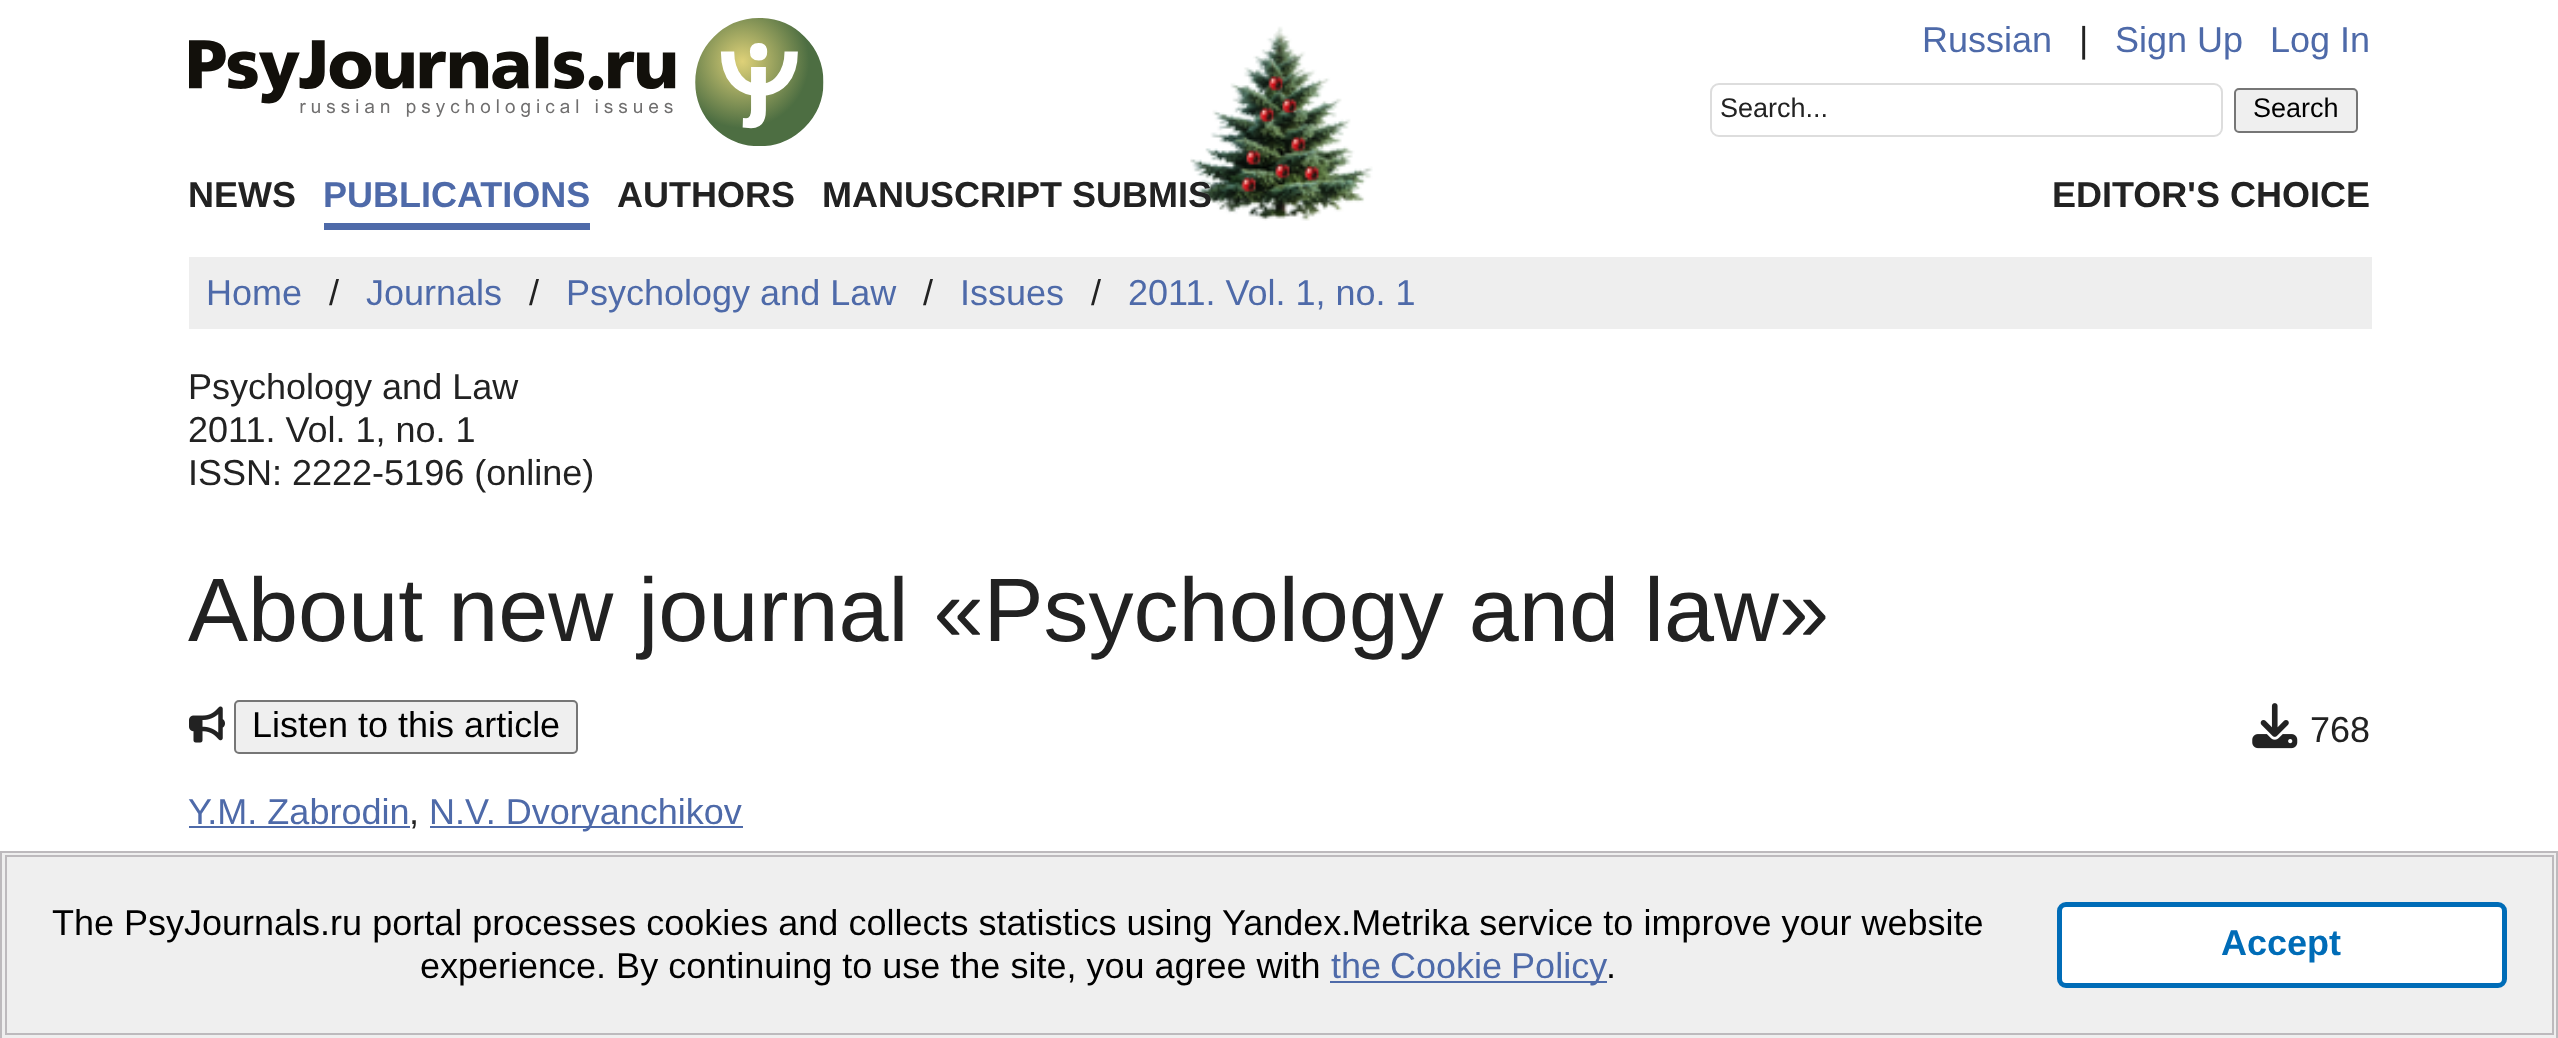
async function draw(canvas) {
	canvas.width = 2558;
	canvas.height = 1038;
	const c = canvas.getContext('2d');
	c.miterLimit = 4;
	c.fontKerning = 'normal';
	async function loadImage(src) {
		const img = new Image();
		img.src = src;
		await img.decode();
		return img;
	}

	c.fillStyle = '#fff';
	c.fillRect(0, 0, 2558, 1038);
	c.drawImage(await loadImage('img1.png'), 1190, 26, 183, 195);
	c.drawImage(await loadImage('img2.png'), 189, 18, 635, 128);
	c.font = '36px Liberation Sans';
	c.fillStyle = '#4e6aa9';
	c.fillText('Russian', 1922, 52);
	c.fillStyle = '#222';
	c.fillText('|', 2079, 52);
	c.fillStyle = '#4e6aa9';
	c.fillText('Sign Up', 2115, 52);
	c.fillText('Log In', 2270, 52);
	c.beginPath();
	c.roundRect(1711, 84, 511, 52, 8);
	c.strokeStyle = '#ddd';
	c.lineWidth = 2;
	c.stroke();
	c.font = '27px Liberation Sans';
	c.fillStyle = '#222';
	c.fillText('Search...', 1720, 117);
	c.fillStyle = '#efefef';
	c.beginPath();
	c.roundRect(2235, 89, 122, 43, 4);
	c.fill();
	c.strokeStyle = '#767676';
	c.stroke();
	c.fillStyle = '#000';
	c.fillText('Search', 2253, 117);
	c.font = 'bold 36px Liberation Sans';
	c.fillStyle = '#222';
	c.fillText('NEWS', 188, 207);
	c.fillStyle = '#4e6aa9';
	c.fillRect(324, 223, 266, 7);
	c.fillText('PUBLICATIONS', 323, 207);
	c.fillStyle = '#222';
	for (const [text, x, y] of [
		['AUTHORS', 617, 207],
		['MANUSCRIPT SUBMIS', 822, 207],
		['EDITOR\'S CHOICE', 2052, 207],
	]) {
		c.fillText(text, x, y);
	}
	c.fillStyle = '#eee';
	c.fillRect(189, 257, 2183, 72);
	c.font = '36px Liberation Sans';
	c.fillStyle = '#4e6aa9';
	c.fillText('Home', 206, 305);
	c.fillStyle = '#222';
	c.fillText('/', 329, 305);
	c.fillStyle = '#4e6aa9';
	c.fillText('Journals', 366, 305);
	c.fillStyle = '#222';
	c.fillText('/', 529, 305);
	c.fillStyle = '#4e6aa9';
	c.fillText('Psychology and Law', 566, 305);
	c.fillStyle = '#222';
	c.fillText('/', 923, 305);
	c.fillStyle = '#4e6aa9';
	c.fillText('Issues', 960, 305);
	c.fillStyle = '#222';
	c.fillText('/', 1091, 305);
	c.fillStyle = '#4e6aa9';
	c.fillText('2011. Vol. 1, no. 1', 1128, 305);
	c.fillStyle = '#222';
	for (const [text, x, y] of [
		['Psychology and Law', 188, 399],
		['2011. Vol. 1, no. 1', 188, 442],
		['ISSN: 2222-5196 (online)', 188, 485],
	]) {
		c.fillText(text, x, y);
	}
	c.font = '90px Liberation Sans';
	c.fillText('About new journal «Psychology and law»', 188, 641);
	c.drawImage(await loadImage('img3.png'), 189, 706, 36, 37);
	c.fillStyle = '#efefef';
	c.beginPath();
	c.roundRect(235, 701, 342, 52, 4);
	c.fill();
	c.stroke();
	c.font = '36px Liberation Sans';
	c.fillStyle = '#000';
	c.fillText('Listen to this article', 252, 737);
	c.drawImage(await loadImage('img4.png'), 2252, 703, 46, 46);
	c.fillStyle = '#222';
	c.fillText('768', 2310, 742);
	c.fillStyle = '#4e6aa9';
	c.fillText('Y.M. Zabrodin', 188, 824);
	c.fillRect(189, 826, 221, 2);
	c.fillStyle = '#222';
	c.fillText(',', 409, 824);
	c.fillStyle = '#4e6aa9';
	c.fillRect(430, 826, 313, 2);
	c.fillText('N.V. Dvoryanchikov', 429, 824);
	c.fillStyle = '#efefef';
	c.beginPath();
	c.rect(1, 852, 2556, 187);
	c.fill();
	c.strokeStyle = '#bdbabd';
	c.stroke();
	c.strokeRect(6, 856, 2547, 178);
	c.fillStyle = '#000';
	c.fillText('The PsyJournals.ru portal processes cookies and collects statistics using Yandex.Metrika service to improve your website', 52, 935);
	c.fillText('experience. By continuing to use the site, you agree with', 420, 978);
	c.fillStyle = '#4e6aa9';
	c.fillRect(1330, 981, 277, 2);
	c.wordSpacing = '-1px';
	c.fillText('the Cookie Policy', 1331, 978);
	c.wordSpacing = '0px';
	c.fillStyle = '#000';
	c.fillText('.', 1606, 978);
	c.fillStyle = '#fff';
	c.beginPath();
	c.roundRect(2059.5, 904.5, 445, 81, 6.5);
	c.fill();
	c.strokeStyle = '#006cb7';
	c.lineWidth = 5;
	c.stroke();
	c.font = 'bold 36px Liberation Sans';
	c.fillStyle = '#006cb7';
	c.fillText('Accept', 2221, 955);
}

draw(document.querySelector('canvas'));
